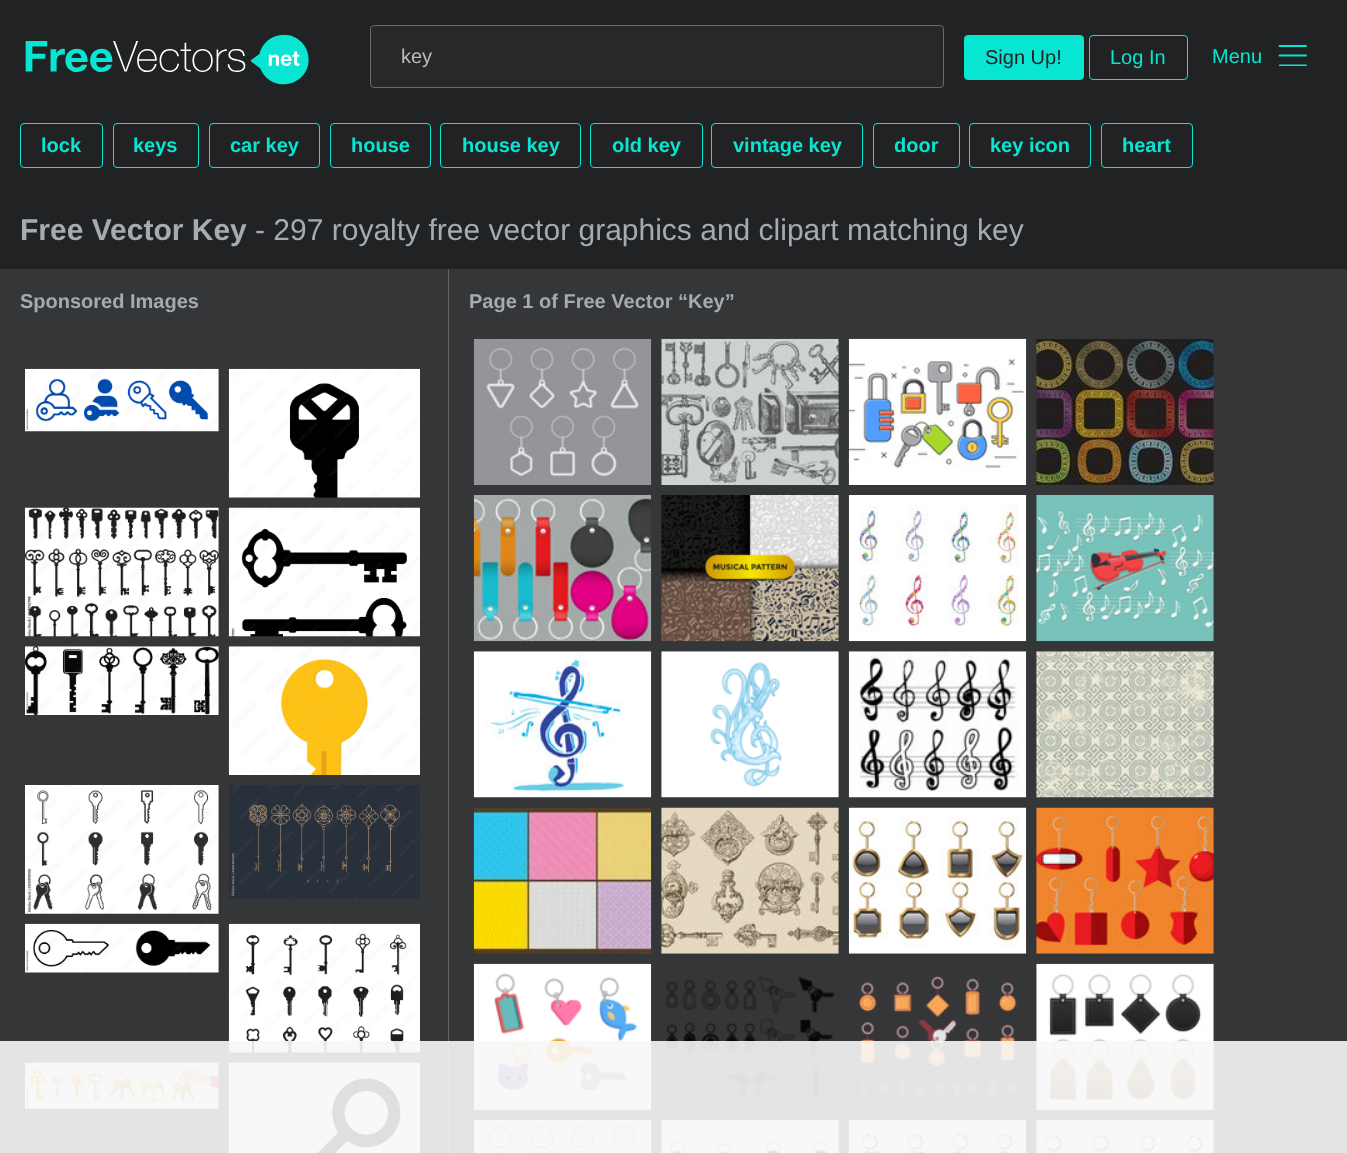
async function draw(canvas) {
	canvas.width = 1347;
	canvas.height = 1153;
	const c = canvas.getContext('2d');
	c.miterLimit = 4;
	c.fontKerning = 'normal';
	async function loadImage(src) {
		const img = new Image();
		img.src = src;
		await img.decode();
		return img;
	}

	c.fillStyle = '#202224';
	c.fillRect(0, 0, 1347, 1153);
	c.drawImage(await loadImage('img1.png'), 25, 34, 284, 51);
	c.fillStyle = '#282828';
	c.beginPath();
	c.roundRect(370.5, 25.5, 573, 62, 3.5);
	c.fill();
	c.strokeStyle = '#636a70';
	c.stroke();
	c.font = '20px Liberation Sans';
	c.fillStyle = '#bbb';
	c.fillText('key', 401, 63);
	c.fillStyle = '#08e5d2';
	c.beginPath();
	c.roundRect(964.5, 35.5, 119, 44, 3.5);
	c.fill();
	c.strokeStyle = '#08e5d2';
	c.stroke();
	c.fillStyle = '#202224';
	c.fillText('Sign Up!', 985, 64);
	c.beginPath();
	c.roundRect(1089.5, 35.5, 98, 44, 3.5);
	c.stroke();
	c.fillStyle = '#08e5d2';
	c.fillText('Log In', 1110, 64);
	c.fillText('Menu', 1212, 63);
	c.beginPath();
	c.moveTo(1279.5, 46);
	c.lineTo(1306, 46);
	c.moveTo(1279.5, 55.5);
	c.lineTo(1306, 55.5);
	c.lineWidth = 1.8;
	c.lineCap = 'round';
	c.lineJoin = 'round';
	c.stroke();
	c.save();
	c.beginPath();
	c.rect(1279, 45, 29, 21);
	c.clip();
	c.beginPath();
	c.moveTo(1279.5, 65.5);
	c.lineTo(1306, 65.5);
	c.stroke();
	c.restore();
	c.beginPath();
	c.roundRect(20.5, 123.5, 82, 44, 3.5);
	c.lineWidth = 1;
	c.lineJoin = 'miter';
	c.stroke();
	c.font = 'bold 20px Liberation Sans';
	c.fillText('lock', 41, 152);
	c.beginPath();
	c.roundRect(113.5, 123.5, 85, 44, 3.5);
	c.stroke();
	c.fillText('keys', 133, 152);
	c.beginPath();
	c.roundRect(209.5, 123.5, 110, 44, 3.5);
	c.stroke();
	c.fillText('car key', 230, 152);
	c.beginPath();
	c.roundRect(330.5, 123.5, 100, 44, 3.5);
	c.stroke();
	c.fillText('house', 351, 152);
	c.beginPath();
	c.roundRect(440.5, 123.5, 140, 44, 3.5);
	c.stroke();
	c.fillText('house key', 462, 152);
	c.beginPath();
	c.roundRect(590.5, 123.5, 112, 44, 3.5);
	c.stroke();
	c.fillText('old key', 612, 152);
	c.beginPath();
	c.roundRect(711.5, 123.5, 151, 44, 3.5);
	c.stroke();
	c.fillText('vintage key', 733, 152);
	c.beginPath();
	c.roundRect(873.5, 123.5, 86, 44, 3.5);
	c.stroke();
	c.fillText('door', 894, 152);
	c.beginPath();
	c.roundRect(969.5, 123.5, 121, 44, 3.5);
	c.stroke();
	c.fillText('key icon', 990, 152);
	c.beginPath();
	c.roundRect(1101.5, 123.5, 91, 44, 3.5);
	c.stroke();
	c.fillText('heart', 1122, 152);
	c.font = 'bold 30px Liberation Sans';
	c.fillStyle = '#a6aab1';
	c.fillText('Free Vector Key', 20, 240);
	c.font = '30px Liberation Sans';
	c.fillText('- 297 royalty free vector graphics and clipart matching key', 255, 240);
	c.fillStyle = '#353638';
	c.fillRect(0, 269, 1347, 884);
	c.fillStyle = '#666';
	c.fillRect(448, 269, 1, 884);
	c.font = 'bold 20px Liberation Sans';
	c.fillStyle = '#a6aab1';
	c.fillText('Sponsored Images', 20, 308);
	c.drawImage(await loadImage('img2.png'), 25, 368, 194, 64);
	c.drawImage(await loadImage('img3.png'), 228, 368, 192, 130);
	c.drawImage(await loadImage('img4.png'), 25, 507, 194, 130);
	c.drawImage(await loadImage('img5.png'), 228, 507, 192, 130);
	c.drawImage(await loadImage('img6.png'), 25, 646, 194, 69);
	c.drawImage(await loadImage('img7.png'), 228, 646, 192, 129);
	c.drawImage(await loadImage('img8.png'), 25, 785, 194, 129);
	c.drawImage(await loadImage('img9.png'), 229, 785, 191, 114);
	c.drawImage(await loadImage('img10.png'), 25, 923, 194, 50);
	c.drawImage(await loadImage('img11.png'), 228, 923, 192, 130);
	c.drawImage(await loadImage('img12.png'), 25, 1062, 194, 47);
	c.drawImage(await loadImage('img13.png'), 228, 1062, 192, 91);
	c.fillText('Page 1 of Free Vector “Key”', 469, 308);
	c.drawImage(await loadImage('img14.png'), 473, 338, 179, 147);
	c.drawImage(await loadImage('img15.png'), 661, 338, 178, 147);
	c.drawImage(await loadImage('img16.png'), 848, 338, 179, 147);
	c.drawImage(await loadImage('img17.png'), 1036, 339, 178, 146);
	c.drawImage(await loadImage('img18.png'), 473, 495, 179, 147);
	c.drawImage(await loadImage('img19.png'), 661, 495, 178, 147);
	c.drawImage(await loadImage('img20.png'), 848, 495, 179, 147);
	c.drawImage(await loadImage('img21.png'), 1036, 495, 178, 147);
	c.drawImage(await loadImage('img22.png'), 473, 651, 179, 147);
	c.drawImage(await loadImage('img23.png'), 661, 651, 178, 147);
	c.drawImage(await loadImage('img24.png'), 848, 651, 179, 147);
	c.drawImage(await loadImage('img25.png'), 1036, 651, 178, 147);
	c.drawImage(await loadImage('img26.png'), 473, 807, 179, 147);
	c.drawImage(await loadImage('img27.png'), 661, 807, 178, 147);
	c.drawImage(await loadImage('img28.png'), 848, 807, 179, 147);
	c.drawImage(await loadImage('img29.png'), 1036, 807, 178, 147);
	c.drawImage(await loadImage('img30.png'), 473, 963, 179, 147);
	c.drawImage(await loadImage('img31.png'), 665, 976, 170, 122);
	c.drawImage(await loadImage('img32.png'), 858, 976, 159, 122);
	c.drawImage(await loadImage('img33.png'), 1036, 963, 178, 147);
	c.drawImage(await loadImage('img34.png'), 473, 1120, 179, 33);
	c.drawImage(await loadImage('img35.png'), 661, 1120, 178, 33);
	c.drawImage(await loadImage('img36.png'), 848, 1120, 179, 33);
	c.drawImage(await loadImage('img37.png'), 1036, 1120, 178, 33);
	c.fillStyle = '#f7f7f7e6';
	c.fillRect(0, 1041, 1347, 112);
}

draw(document.querySelector('canvas'));
